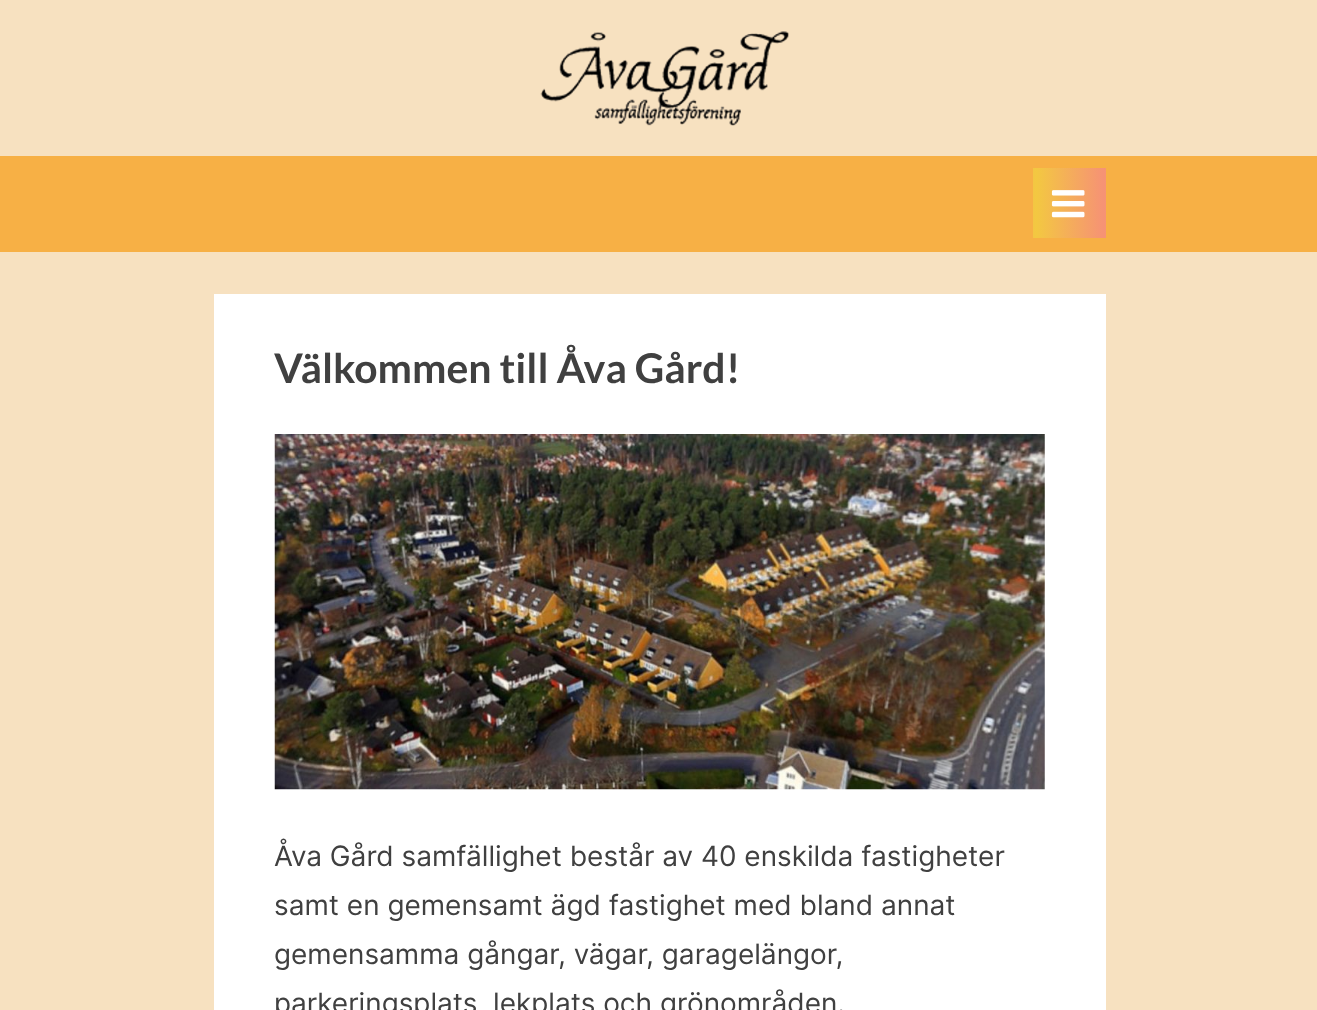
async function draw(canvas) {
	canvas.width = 1317;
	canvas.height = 1010;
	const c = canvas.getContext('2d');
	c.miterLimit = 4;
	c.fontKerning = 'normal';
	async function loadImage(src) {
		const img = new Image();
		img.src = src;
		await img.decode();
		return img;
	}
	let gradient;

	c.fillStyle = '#f7e1c0';
	c.fillRect(0, 0, 1317, 1010);
	c.drawImage(await loadImage('img1.png'), 540, 31, 249, 95);
	c.fillStyle = '#f7b045';
	c.fillRect(0, 156, 1317, 96);
	gradient = c.createLinearGradient(903, 203, 1036, 203);
	gradient.addColorStop(0, '#f3c841');
	gradient.addColorStop(0.51, '#f69275');
	gradient.addColorStop(1, '#f3c841');
	c.fillStyle = gradient;
	c.fillRect(1033, 168, 3, 70);
	gradient = c.createLinearGradient(1036, 203, 1169, 203);
	gradient.addColorStop(0, '#f3c841');
	gradient.addColorStop(0.51, '#f69275');
	gradient.addColorStop(1, '#f3c841');
	c.fillStyle = gradient;
	c.fillRect(1036, 168, 70, 70);
	c.drawImage(await loadImage('img2.png'), 1051, 190, 34, 28);
	c.fillStyle = '#fff';
	c.fillRect(214, 294, 892, 716);
	c.font = 'bold 40.9px Lato';
	c.fillStyle = '#404040';
	c.fillText('Välkommen till Åva Gård!', 274, 383);
	c.drawImage(await loadImage('img3.png'), 274, 434, 771, 356);
	c.font = '28px Inter';
	for (const [text, x, y] of [
		['Åva Gård samfällighet består av 40 enskilda fastigheter', 274, 866],
		['samt en gemensamt ägd fastighet med bland annat', 274, 915],
		['gemensamma gångar, vägar, garagelängor,', 274, 964],
		['parkeringsplats, lekplats och grönområden.', 274, 1013],
	]) {
		c.fillText(text, x, y);
	}
}

draw(document.querySelector('canvas'));
